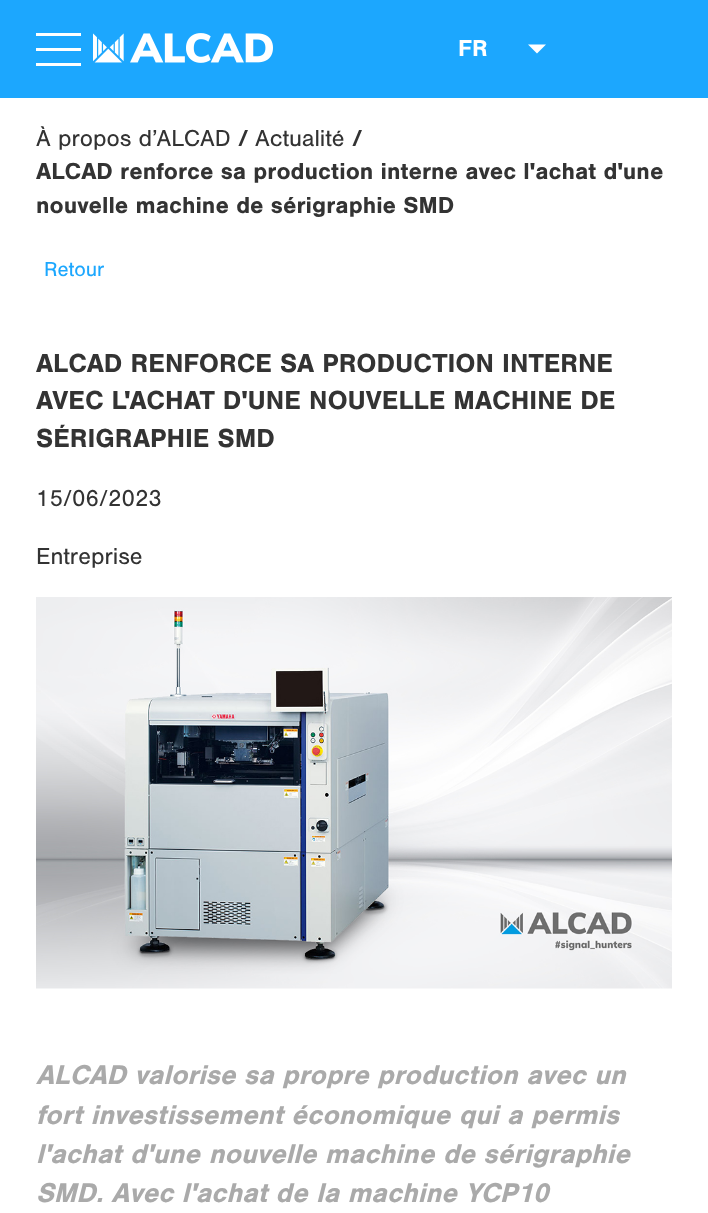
async function draw(canvas) {
	canvas.width = 708;
	canvas.height = 1213;
	const c = canvas.getContext('2d');
	c.miterLimit = 4;
	c.fontKerning = 'normal';
	async function loadImage(src) {
		const img = new Image();
		img.src = src;
		await img.decode();
		return img;
	}

	c.fillStyle = '#fff';
	c.fillRect(0, 0, 708, 1213);
	for (const [x, y, w, h, color] of [
		[0, 0, 708, 98, '#1ca7fe'],
		[36, 48, 45, 3, '#fff'],
		[36, 33, 45, 3, '#fff'],
		[36, 63, 45, 3, '#fff'],
	]) {
		c.fillStyle = color;
		c.fillRect(x, y, w, h);
	}
	c.drawImage(await loadImage('img1.png'), 93, 33, 180, 30);
	c.font = 'bold 24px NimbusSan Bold';
	c.fillText('FR', 458, 56);
	c.beginPath();
	c.moveTo(528, 44.5);
	c.lineTo(546, 44.5);
	c.lineTo(537, 53.5);
	c.closePath();
	c.fill();
	c.font = '24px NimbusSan';
	c.fillStyle = '#333';
	c.fillText('À propos d’ALCAD', 36, 146);
	c.font = 'bold 24px NimbusSan Bold';
	c.fillText('/', 238, 146);
	c.font = '24px NimbusSan';
	c.fillText('Actualité', 255, 146);
	c.font = 'bold 24px NimbusSan Bold';
	for (const [text, x, y] of [
		['/', 352, 146],
		['ALCAD renforce sa production interne avec l\'achat d\'une', 36, 179],
		['nouvelle machine de sérigraphie SMD', 36, 213],
	]) {
		c.fillText(text, x, y);
	}
	c.font = '21px NimbusSan';
	c.fillStyle = '#1ca7fe';
	c.fillText('Retour', 44, 276);
	c.font = 'bold 27px NimbusSan Bold';
	c.fillStyle = '#333';
	for (const [text, x, y] of [
		['ALCAD RENFORCE SA PRODUCTION INTERNE', 36, 372],
		['AVEC L\'ACHAT D\'UNE NOUVELLE MACHINE DE', 36, 409],
		['SÉRIGRAPHIE SMD', 36, 447],
	]) {
		c.fillText(text, x, y);
	}
	c.font = '24px NimbusSan';
	c.fillText('15/06/2023', 36, 506);
	c.fillText('Entreprise', 36, 564);
	c.drawImage(await loadImage('img2.png'), 36, 597, 636, 392);
	c.font = 'italic bold 28.1px NimbusSan Bold';
	c.fillStyle = '#aaa';
	for (const [text, x, y] of [
		['ALCAD valorise sa propre production avec un', 36, 1084],
		['fort investissement économique qui a permis', 36, 1124],
		['l\'achat d\'une nouvelle machine de sérigraphie', 36, 1163],
		['SMD. Avec l\'achat de la machine YCP10', 36, 1202],
	]) {
		c.fillText(text, x, y);
	}
}

draw(document.querySelector('canvas'));
